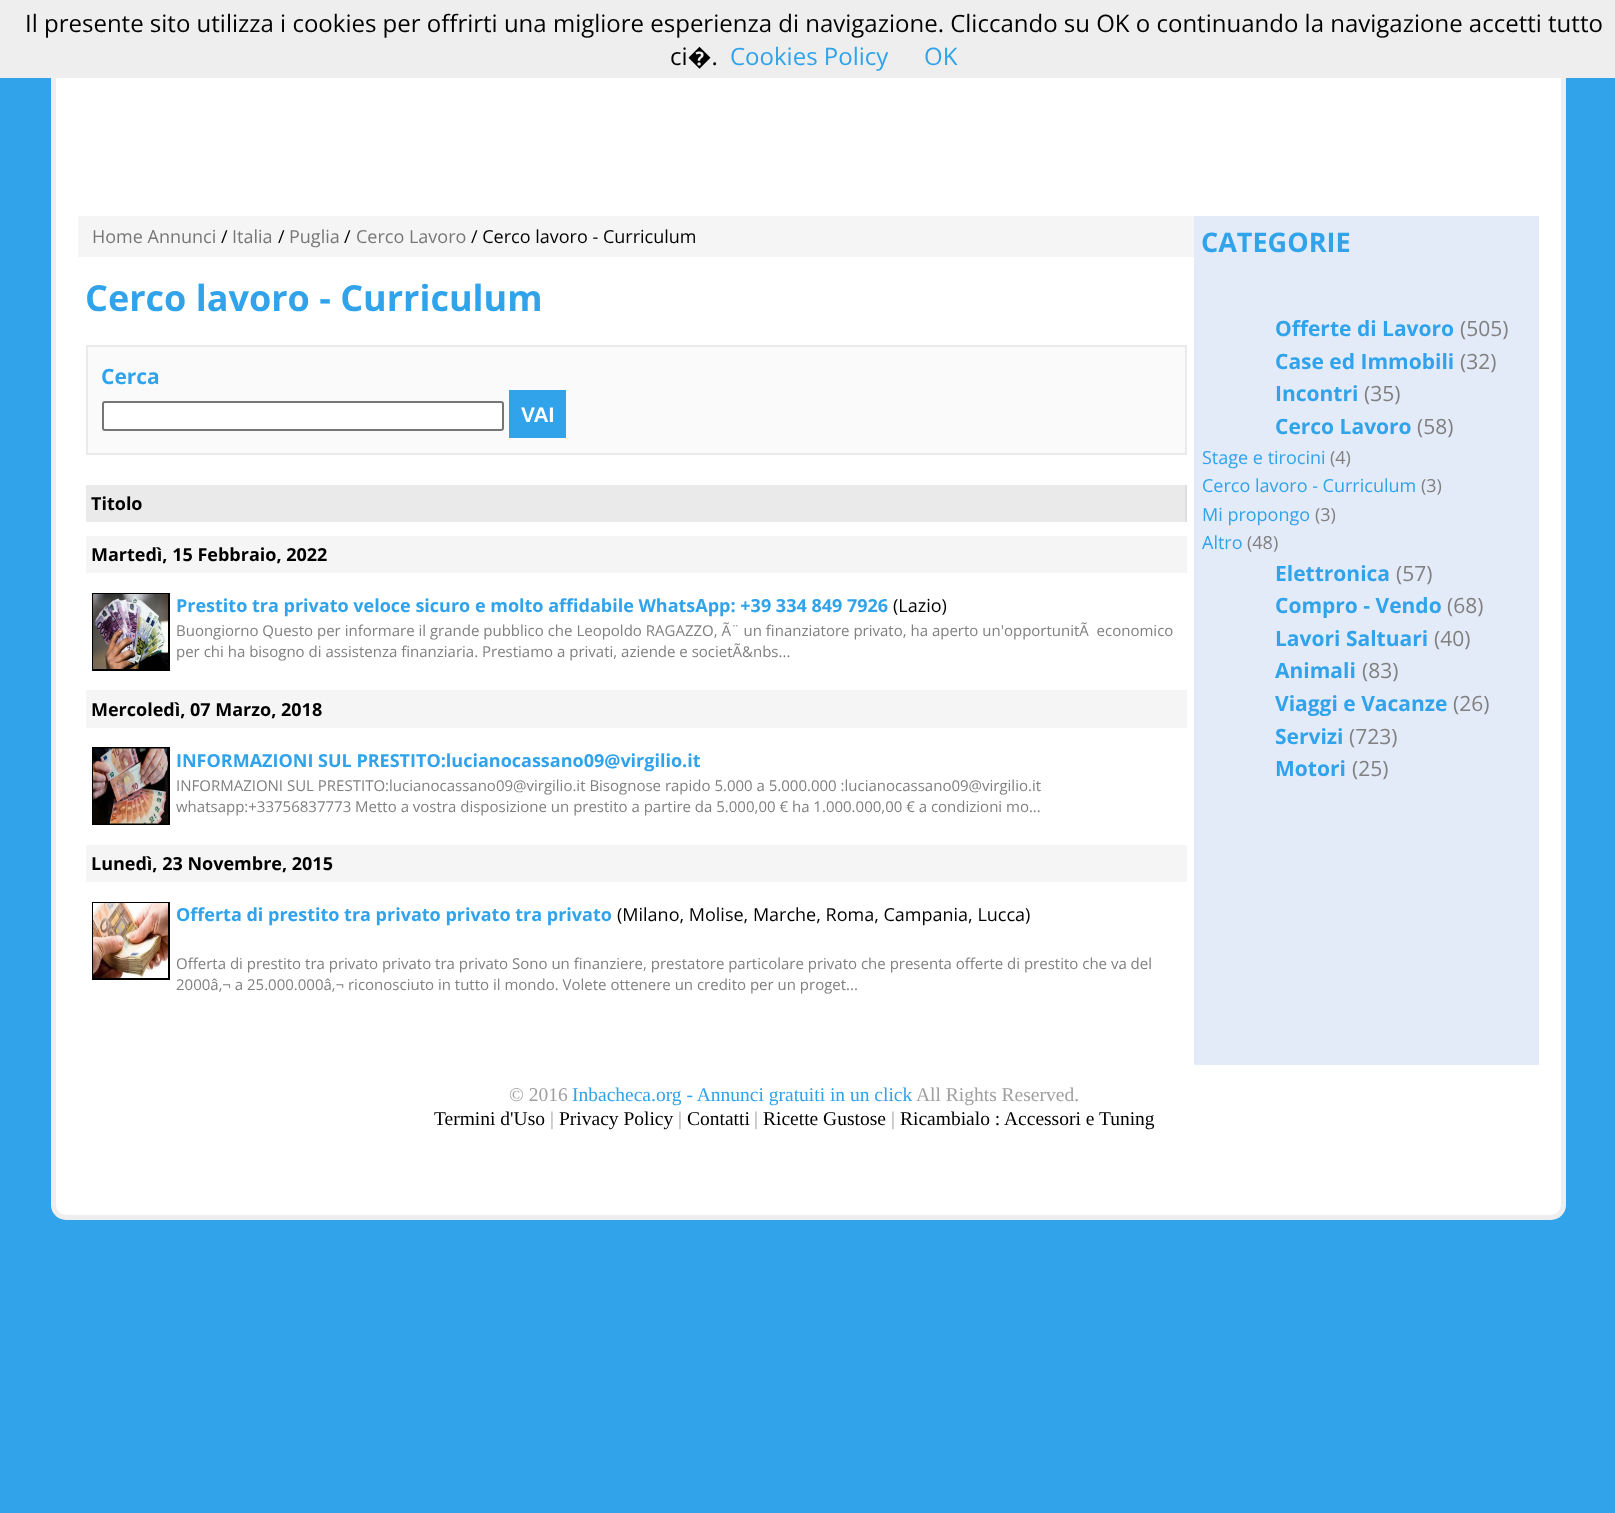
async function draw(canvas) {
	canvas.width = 1615;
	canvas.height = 1513;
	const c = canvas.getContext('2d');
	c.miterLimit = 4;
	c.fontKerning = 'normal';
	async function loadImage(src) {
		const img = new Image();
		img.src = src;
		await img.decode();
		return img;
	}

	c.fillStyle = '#30a3ea';
	c.fillRect(0, 0, 1615, 1513);
	c.fillStyle = '#fff';
	c.beginPath();
	c.roundRect(53.5, 17.5, 1510, 1200, 12.5);
	c.fill();
	c.strokeStyle = '#eee';
	c.lineWidth = 5;
	c.stroke();
	c.fillStyle = '#eee';
	c.fillRect(0, 0, 1615, 78);
	c.font = '24px Open Sans';
	c.fillStyle = '#000';
	c.fillText('Il presente sito utilizza i cookies per offrirti una migliore esperienza di navigazione. Cliccando su OK o continuando la navigazione accetti tutto', 25, 32);
	c.fillText('ci�.', 670, 65);
	c.fillStyle = '#30a3ea';
	c.fillText('Cookies Policy', 730, 65);
	c.fillText('OK', 924, 65);
	c.fillStyle = '#f5f5f5';
	c.fillRect(78, 216, 1116, 41);
	c.font = '18px Open Sans';
	c.fillStyle = '#777';
	c.fillText('Home Annunci', 92, 243);
	c.fillStyle = '#000';
	c.fillText('/', 221, 243);
	c.fillStyle = '#777';
	c.fillText('Italia', 232, 243);
	c.fillStyle = '#000';
	c.fillText('/', 278, 243);
	c.fillStyle = '#777';
	c.fillText('Puglia', 289, 243);
	c.fillStyle = '#000';
	c.fillText('/', 344, 243);
	c.fillStyle = '#777';
	c.fillText('Cerco Lavoro', 356, 243);
	c.fillStyle = '#000';
	c.fillText('/ Cerco lavoro - Curriculum', 471, 243);
	c.font = 'bold 36px Open Sans';
	c.fillStyle = '#30a3ea';
	c.fillText('Cerco lavoro - Curriculum', 85, 311);
	c.fillStyle = '#fafafa';
	c.beginPath();
	c.rect(87, 346, 1099, 108);
	c.fill();
	c.strokeStyle = '#eaeaea';
	c.lineWidth = 2;
	c.stroke();
	c.font = 'bold 21px Open Sans';
	c.fillStyle = '#30a3ea';
	c.fillText('Cerca', 101, 384);
	c.fillStyle = '#fff';
	c.beginPath();
	c.roundRect(103, 402, 400, 28, 2);
	c.fill();
	c.strokeStyle = '#767676';
	c.stroke();
	c.fillStyle = '#30a3ea';
	c.fillRect(509, 390, 57, 48);
	c.font = 'bold 21px Liberation Sans';
	c.fillStyle = '#fff';
	c.fillText('VAI', 521, 422);
	c.fillStyle = '#eaeaea';
	c.fillRect(86, 485, 1099, 37);
	c.fillStyle = '#ddd';
	c.fillRect(1185, 485, 2, 37);
	c.font = 'bold 18px Open Sans';
	c.fillStyle = '#000';
	c.fillText('Titolo', 91, 510);
	c.fillStyle = '#f5f5f5';
	c.fillRect(86, 536, 1101, 37);
	c.fillStyle = '#000';
	c.fillText('Martedì, 15 Febbraio, 2022', 91, 561);
	c.strokeStyle = '#000';
	c.strokeRect(93, 594, 76, 76);
	c.drawImage(await loadImage('img1.png'), 93, 594, 75, 75);
	c.fillStyle = '#30a3ea';
	c.fillText('Prestito tra privato veloce sicuro e molto affidabile WhatsApp: +39 334 849 7926', 176, 612);
	c.font = '18px Open Sans';
	c.fillStyle = '#000';
	c.fillText('(Lazio)', 893, 612);
	c.font = '15px Open Sans';
	c.fillStyle = '#808080';
	c.fillText('Buongiorno Questo per informare il grande pubblico che Leopoldo RAGAZZO, Ã¨ un finanziatore privato, ha aperto un\'opportunitÃ  economico', 176, 636);
	c.fillText('per chi ha bisogno di assistenza finanziaria. Prestiamo a privati, aziende e societÃ&nbs...', 176, 657);
	c.fillStyle = '#f5f5f5';
	c.fillRect(86, 690, 1101, 38);
	c.font = 'bold 18px Open Sans';
	c.fillStyle = '#000';
	c.fillText('Mercoledì, 07 Marzo, 2018', 91, 716);
	c.strokeRect(93, 748, 76, 76);
	c.drawImage(await loadImage('img2.png'), 93, 748, 75, 76);
	c.fillStyle = '#30a3ea';
	c.fillText('INFORMAZIONI SUL PRESTITO:lucianocassano09@virgilio.it', 176, 767);
	c.font = '15px Open Sans';
	c.fillStyle = '#808080';
	c.fillText('INFORMAZIONI SUL PRESTITO:lucianocassano09@virgilio.it Bisognose rapido 5.000 a 5.000.000 :lucianocassano09@virgilio.it', 176, 791);
	c.fillText('whatsapp:+33756837773 Metto a vostra disposizione un prestito a partire da 5.000,00 € ha 1.000.000,00 € a condizioni mo...', 176, 812);
	c.fillStyle = '#f5f5f5';
	c.fillRect(86, 845, 1101, 37);
	c.font = 'bold 18px Open Sans';
	c.fillStyle = '#000';
	c.fillText('Lunedì, 23 Novembre, 2015', 91, 870);
	c.strokeRect(93, 903, 76, 76);
	c.drawImage(await loadImage('img3.png'), 93, 903, 75, 75);
	c.fillStyle = '#30a3ea';
	c.fillText('Offerta di prestito tra privato privato tra privato', 176, 921);
	c.font = '18px Open Sans';
	c.fillStyle = '#000';
	c.fillText('(Milano, Molise, Marche, Roma, Campania, Lucca)', 617, 921);
	c.font = '15px Open Sans';
	c.fillStyle = '#808080';
	c.fillText('Offerta di prestito tra privato privato tra privato Sono un finanziere, prestatore particolare privato che presenta offerte di prestito che va del', 176, 969);
	c.fillText('2000â‚¬ a 25.000.000â‚¬ riconosciuto in tutto il mondo. Volete ottenere un credito per un proget...', 176, 990);
	c.fillStyle = '#e4ebf8';
	c.fillRect(1194, 216, 345, 849);
	c.font = 'bold 27px Open Sans';
	c.fillStyle = '#30a3ea';
	c.fillText('CATEGORIE', 1201, 252);
	c.font = 'bold 21px Open Sans';
	c.fillText('Offerte di Lavoro', 1275, 336);
	c.font = '21px Open Sans';
	c.fillStyle = '#808080';
	c.fillText('(505)', 1460, 336);
	c.font = 'bold 21px Open Sans';
	c.fillStyle = '#30a3ea';
	c.fillText('Case ed Immobili', 1275, 369);
	c.font = '21px Open Sans';
	c.fillStyle = '#808080';
	c.fillText('(32)', 1460, 369);
	c.font = 'bold 21px Open Sans';
	c.fillStyle = '#30a3ea';
	c.fillText('Incontri', 1275, 401);
	c.font = '21px Open Sans';
	c.fillStyle = '#808080';
	c.fillText('(35)', 1364, 401);
	c.font = 'bold 21px Open Sans';
	c.fillStyle = '#30a3ea';
	c.fillText('Cerco Lavoro', 1275, 434);
	c.font = '21px Open Sans';
	c.fillStyle = '#808080';
	c.fillText('(58)', 1417, 434);
	c.font = '18px Open Sans';
	c.fillStyle = '#30a3ea';
	c.fillText('Stage e tirocini', 1202, 464);
	c.fillStyle = '#808080';
	c.fillText('(4)', 1330, 464);
	c.fillStyle = '#30a3ea';
	c.fillText('Cerco lavoro - Curriculum', 1202, 492);
	c.fillStyle = '#808080';
	c.fillText('(3)', 1421, 492);
	c.fillStyle = '#30a3ea';
	c.fillText('Mi propongo', 1202, 521);
	c.fillStyle = '#808080';
	c.fillText('(3)', 1315, 521);
	c.fillStyle = '#30a3ea';
	c.fillText('Altro', 1202, 549);
	c.fillStyle = '#808080';
	c.fillText('(48)', 1247, 549);
	c.font = 'bold 21px Open Sans';
	c.fillStyle = '#30a3ea';
	c.fillText('Elettronica', 1275, 581);
	c.font = '21px Open Sans';
	c.fillStyle = '#808080';
	c.fillText('(57)', 1396, 581);
	c.font = 'bold 21px Open Sans';
	c.fillStyle = '#30a3ea';
	c.fillText('Compro - Vendo', 1275, 613);
	c.font = '21px Open Sans';
	c.fillStyle = '#808080';
	c.fillText('(68)', 1447, 613);
	c.font = 'bold 21px Open Sans';
	c.fillStyle = '#30a3ea';
	c.fillText('Lavori Saltuari', 1275, 646);
	c.font = '21px Open Sans';
	c.fillStyle = '#808080';
	c.fillText('(40)', 1434, 646);
	c.font = 'bold 21px Open Sans';
	c.fillStyle = '#30a3ea';
	c.fillText('Animali', 1275, 678);
	c.font = '21px Open Sans';
	c.fillStyle = '#808080';
	c.fillText('(83)', 1362, 678);
	c.font = 'bold 21px Open Sans';
	c.fillStyle = '#30a3ea';
	c.fillText('Viaggi e Vacanze', 1275, 711);
	c.font = '21px Open Sans';
	c.fillStyle = '#808080';
	c.fillText('(26)', 1453, 711);
	c.font = 'bold 21px Open Sans';
	c.fillStyle = '#30a3ea';
	c.fillText('Servizi', 1275, 744);
	c.font = '21px Open Sans';
	c.fillStyle = '#808080';
	c.fillText('(723)', 1349, 744);
	c.font = 'bold 21px Open Sans';
	c.fillStyle = '#30a3ea';
	c.fillText('Motori', 1275, 776);
	c.font = '21px Open Sans';
	c.fillStyle = '#808080';
	c.fillText('(25)', 1352, 776);
	c.font = '19.5px Liberation Serif';
	c.fillStyle = '#a0a0a0';
	c.fillText('© 2016', 509, 1101);
	c.fillStyle = '#30a3ea';
	c.fillText('Inbacheca.org - Annunci gratuiti in un click', 572, 1101);
	c.fillStyle = '#a0a0a0';
	c.fillText('All Rights Reserved.', 916, 1101);
	c.fillStyle = '#000';
	c.fillText('Termini d\'Uso', 434, 1125);
	c.fillStyle = '#a0a0a0';
	c.fillText('|', 550, 1125);
	c.fillStyle = '#000';
	c.fillText('Privacy Policy', 559, 1125);
	c.fillStyle = '#a0a0a0';
	c.fillText('|', 678, 1125);
	c.fillStyle = '#000';
	c.fillText('Contatti', 687, 1125);
	c.fillStyle = '#a0a0a0';
	c.fillText('|', 754, 1125);
	c.fillStyle = '#000';
	c.fillText('Ricette Gustose', 763, 1125);
	c.fillStyle = '#a0a0a0';
	c.fillText('|', 891, 1125);
	c.fillStyle = '#000';
	c.fillText('Ricambialo : Accessori e Tuning', 900, 1125);
}

draw(document.querySelector('canvas'));
